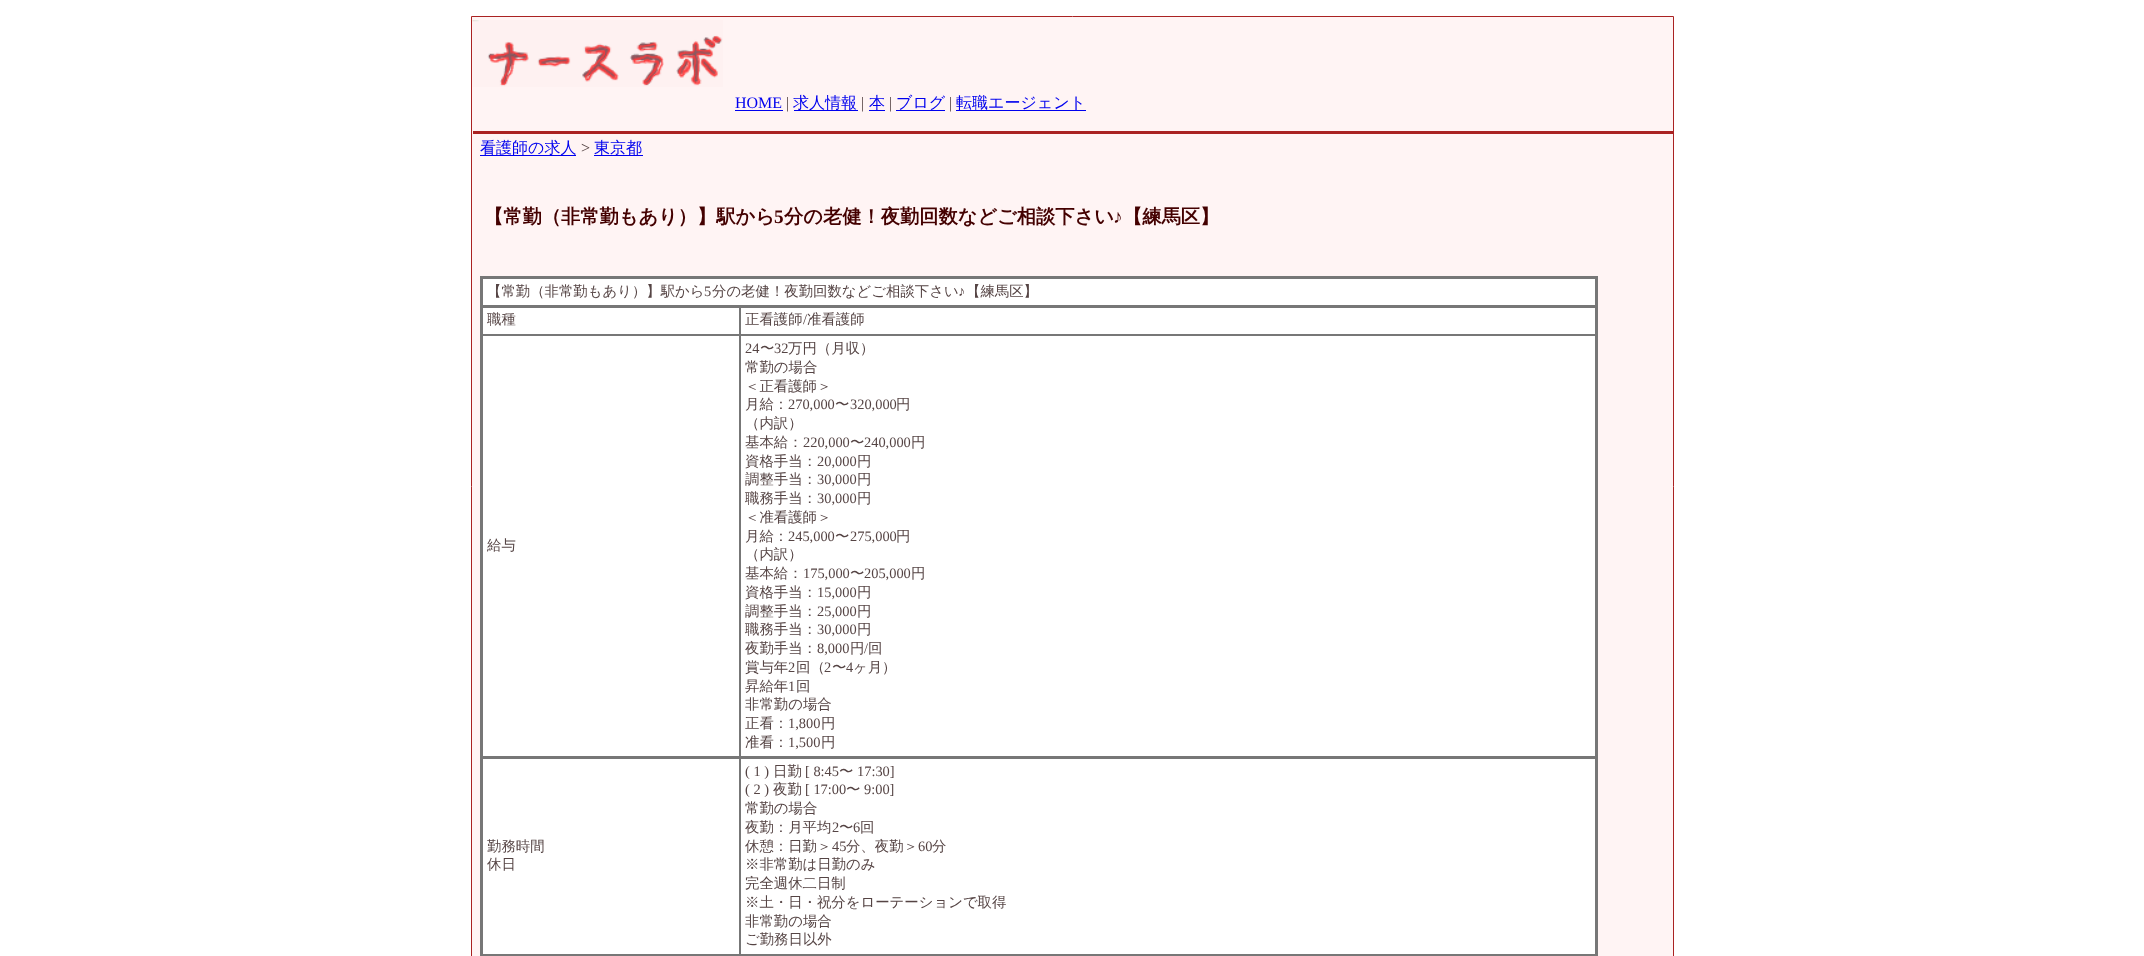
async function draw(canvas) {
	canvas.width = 2144;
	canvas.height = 956;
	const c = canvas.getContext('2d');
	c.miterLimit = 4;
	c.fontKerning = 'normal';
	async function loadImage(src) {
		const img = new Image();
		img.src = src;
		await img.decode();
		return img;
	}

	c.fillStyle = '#fff';
	c.fillRect(0, 0, 2144, 956);
	c.fillStyle = '#fff4f4';
	c.beginPath();
	c.rect(471.5, 16.5, 1202, 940);
	c.fill();
	c.strokeStyle = '#a22';
	c.stroke();
	c.fillStyle = '#a22';
	c.fillRect(473, 131, 1200, 3);
	c.drawImage(await loadImage('img1.png'), 472, 20, 251, 67);
	c.font = '16px Liberation Serif';
	c.fillStyle = '#00e';
	c.fillText('HOME', 735, 108);
	c.fillRect(735, 110, 48, 1);
	c.fillStyle = '#544';
	c.fillText('|', 786, 108);
	c.fillStyle = '#00e';
	c.fillRect(794, 110, 64, 1);
	c.font = '500 16px WenQuanYi Zen Hei';
	c.fillText('求人情報', 793, 108);
	c.font = '16px Liberation Serif';
	c.fillStyle = '#544';
	c.fillText('|', 861, 108);
	c.font = '500 16px WenQuanYi Zen Hei';
	c.fillStyle = '#00e';
	c.fillText('本', 869, 108);
	c.fillRect(869, 110, 16, 1);
	c.font = '16px Liberation Serif';
	c.fillStyle = '#544';
	c.fillText('|', 889, 108);
	c.fillStyle = '#00e';
	c.fillRect(896, 110, 49, 1);
	c.font = '500 16px WenQuanYi Zen Hei';
	c.fillText('ブログ', 896, 108);
	c.font = '16px Liberation Serif';
	c.fillStyle = '#544';
	c.fillText('|', 949, 108);
	c.fillStyle = '#00e';
	c.fillRect(956, 110, 130, 1);
	c.font = '500 16px WenQuanYi Zen Hei';
	c.fillText('転職エージェント', 956, 108);
	c.fillRect(480, 155, 96, 1);
	c.fillText('看護師の求人', 480, 153);
	c.font = '16px Liberation Serif';
	c.fillStyle = '#544';
	c.fillText('>', 581, 153);
	c.fillStyle = '#00e';
	c.fillRect(594, 155, 49, 1);
	c.font = '500 16px WenQuanYi Zen Hei';
	c.fillText('東京都', 594, 153);
	c.font = 'bold 19.25px WenQuanYi Zen Hei';
	c.fillStyle = '#400';
	c.fillText('【常勤（非常勤もあり）】駅から', 484, 223);
	c.font = 'bold 19.25px Liberation Serif';
	c.fillText('5', 774, 223);
	c.font = 'bold 19.25px WenQuanYi Zen Hei';
	c.fillText('分の老健！夜勤回数などご相談下さい', 784, 223);
	c.font = 'bold 19.25px Liberation Serif';
	c.fillText('♪', 1113, 223);
	c.font = 'bold 19.25px WenQuanYi Zen Hei';
	c.fillText('【練馬区】', 1123, 223);
	c.fillStyle = '#777';
	c.fillRect(480, 276, 1118, 680);
	c.fillStyle = '#fff';
	c.fillRect(483, 279, 1112, 26);
	c.font = '500 14.4px WenQuanYi Zen Hei';
	c.fillStyle = '#544';
	c.fillText('【常勤（非常勤もあり）】駅から', 487, 296);
	c.font = '14.4px Liberation Serif';
	c.fillText('5', 704, 296);
	c.font = '500 14.4px WenQuanYi Zen Hei';
	c.fillText('分の老健！夜勤回数などご相談下さい', 712, 296);
	c.font = '14.4px Liberation Serif';
	c.fillText('♪', 958, 296);
	c.font = '500 14.4px WenQuanYi Zen Hei';
	c.fillText('【練馬区】', 966, 296);
	c.fillStyle = '#fff';
	c.fillRect(483, 308, 256, 26);
	c.fillStyle = '#544';
	c.fillText('職種', 487, 324);
	c.fillStyle = '#fff';
	c.fillRect(741, 308, 854, 26);
	c.fillStyle = '#544';
	c.fillText('正看護師', 745, 324);
	c.font = '14.4px Liberation Serif';
	c.fillText('/', 803, 324);
	c.font = '500 14.4px WenQuanYi Zen Hei';
	c.fillText('准看護師', 807, 324);
	c.fillStyle = '#fff';
	c.fillRect(483, 336, 256, 420);
	c.fillStyle = '#544';
	c.fillText('給与', 487, 550);
	c.fillStyle = '#fff';
	c.fillRect(741, 336, 854, 420);
	c.font = '14.4px Liberation Serif';
	c.fillStyle = '#544';
	c.fillText('24', 745, 353);
	c.font = '500 14.4px WenQuanYi Zen Hei';
	c.fillText('〜', 760, 353);
	c.font = '14.4px Liberation Serif';
	c.fillText('32', 774, 353);
	c.font = '500 14.4px WenQuanYi Zen Hei';
	for (const [text, x, y] of [
		['万円（月収）', 788, 353],
		['常勤の場合', 745, 372],
		['＜正看護師＞', 745, 391],
		['月給：', 745, 409],
	]) {
		c.fillText(text, x, y);
	}
	c.font = '14.4px Liberation Serif';
	c.fillText('270,000', 788, 409);
	c.font = '500 14.4px WenQuanYi Zen Hei';
	c.fillText('〜', 835, 409);
	c.font = '14.4px Liberation Serif';
	c.fillText('320,000', 850, 409);
	c.font = '500 14.4px WenQuanYi Zen Hei';
	for (const [text, x, y] of [
		['円', 896, 409],
		['（内訳）', 745, 428],
		['基本給：', 745, 447],
	]) {
		c.fillText(text, x, y);
	}
	c.font = '14.4px Liberation Serif';
	c.fillText('220,000', 803, 447);
	c.font = '500 14.4px WenQuanYi Zen Hei';
	c.fillText('〜', 850, 447);
	c.font = '14.4px Liberation Serif';
	c.fillText('240,000', 864, 447);
	c.font = '500 14.4px WenQuanYi Zen Hei';
	c.fillText('円', 911, 447);
	c.fillText('資格手当：', 745, 466);
	c.font = '14.4px Liberation Serif';
	c.fillText('20,000', 817, 466);
	c.font = '500 14.4px WenQuanYi Zen Hei';
	c.fillText('円', 857, 466);
	c.fillText('調整手当：', 745, 484);
	c.font = '14.4px Liberation Serif';
	c.fillText('30,000', 817, 484);
	c.font = '500 14.4px WenQuanYi Zen Hei';
	c.fillText('円', 857, 484);
	c.fillText('職務手当：', 745, 503);
	c.font = '14.4px Liberation Serif';
	c.fillText('30,000', 817, 503);
	c.font = '500 14.4px WenQuanYi Zen Hei';
	for (const [text, x, y] of [
		['円', 857, 503],
		['＜准看護師＞', 745, 522],
		['月給：', 745, 541],
	]) {
		c.fillText(text, x, y);
	}
	c.font = '14.4px Liberation Serif';
	c.fillText('245,000', 788, 541);
	c.font = '500 14.4px WenQuanYi Zen Hei';
	c.fillText('〜', 835, 541);
	c.font = '14.4px Liberation Serif';
	c.fillText('275,000', 850, 541);
	c.font = '500 14.4px WenQuanYi Zen Hei';
	for (const [text, x, y] of [
		['円', 896, 541],
		['（内訳）', 745, 559],
		['基本給：', 745, 578],
	]) {
		c.fillText(text, x, y);
	}
	c.font = '14.4px Liberation Serif';
	c.fillText('175,000', 803, 578);
	c.font = '500 14.4px WenQuanYi Zen Hei';
	c.fillText('〜', 850, 578);
	c.font = '14.4px Liberation Serif';
	c.fillText('205,000', 864, 578);
	c.font = '500 14.4px WenQuanYi Zen Hei';
	c.fillText('円', 911, 578);
	c.fillText('資格手当：', 745, 597);
	c.font = '14.4px Liberation Serif';
	c.fillText('15,000', 817, 597);
	c.font = '500 14.4px WenQuanYi Zen Hei';
	c.fillText('円', 857, 597);
	c.fillText('調整手当：', 745, 616);
	c.font = '14.4px Liberation Serif';
	c.fillText('25,000', 817, 616);
	c.font = '500 14.4px WenQuanYi Zen Hei';
	c.fillText('円', 857, 616);
	c.fillText('職務手当：', 745, 634);
	c.font = '14.4px Liberation Serif';
	c.fillText('30,000', 817, 634);
	c.font = '500 14.4px WenQuanYi Zen Hei';
	c.fillText('円', 857, 634);
	c.fillText('夜勤手当：', 745, 653);
	c.font = '14.4px Liberation Serif';
	c.fillText('8,000', 817, 653);
	c.font = '500 14.4px WenQuanYi Zen Hei';
	c.fillText('円', 850, 653);
	c.font = '14.4px Liberation Serif';
	c.fillText('/', 864, 653);
	c.font = '500 14.4px WenQuanYi Zen Hei';
	c.fillText('回', 868, 653);
	c.fillText('賞与年', 745, 672);
	c.font = '14.4px Liberation Serif';
	c.fillText('2', 788, 672);
	c.font = '500 14.4px WenQuanYi Zen Hei';
	c.fillText('回（', 796, 672);
	c.font = '14.4px Liberation Serif';
	c.fillText('2', 824, 672);
	c.font = '500 14.4px WenQuanYi Zen Hei';
	c.fillText('〜', 832, 672);
	c.font = '14.4px Liberation Serif';
	c.fillText('4', 846, 672);
	c.font = '500 14.4px WenQuanYi Zen Hei';
	c.fillText('ヶ月）', 853, 672);
	c.fillText('昇給年', 745, 691);
	c.font = '14.4px Liberation Serif';
	c.fillText('1', 788, 691);
	c.font = '500 14.4px WenQuanYi Zen Hei';
	for (const [text, x, y] of [
		['回', 796, 691],
		['非常勤の場合', 745, 709],
		['正看：', 745, 728],
	]) {
		c.fillText(text, x, y);
	}
	c.font = '14.4px Liberation Serif';
	c.fillText('1,800', 788, 728);
	c.font = '500 14.4px WenQuanYi Zen Hei';
	c.fillText('円', 821, 728);
	c.fillText('准看：', 745, 747);
	c.font = '14.4px Liberation Serif';
	c.fillText('1,500', 788, 747);
	c.font = '500 14.4px WenQuanYi Zen Hei';
	c.fillText('円', 821, 747);
	c.fillStyle = '#fff';
	c.fillRect(483, 759, 256, 195);
	c.fillStyle = '#544';
	c.fillText('勤務時間', 487, 851);
	c.fillText('休日', 487, 869);
	c.fillStyle = '#fff';
	c.fillRect(741, 759, 854, 195);
	c.font = '14.4px Liberation Serif';
	c.fillStyle = '#544';
	c.fillText('( 1 )', 745, 776);
	c.font = '500 14.4px WenQuanYi Zen Hei';
	c.fillText('日勤', 773, 776);
	c.font = '14.4px Liberation Serif';
	c.fillText('[ 8:45', 805, 776);
	c.font = '500 14.4px WenQuanYi Zen Hei';
	c.fillText('〜', 839, 776);
	c.font = '14.4px Liberation Serif';
	c.fillText('17:30]', 857, 776);
	c.fillText('( 2 )', 745, 794);
	c.font = '500 14.4px WenQuanYi Zen Hei';
	c.fillText('夜勤', 773, 794);
	c.font = '14.4px Liberation Serif';
	c.fillText('[ 17:00', 805, 794);
	c.font = '500 14.4px WenQuanYi Zen Hei';
	c.fillText('〜', 846, 794);
	c.font = '14.4px Liberation Serif';
	c.fillText('9:00]', 864, 794);
	c.font = '500 14.4px WenQuanYi Zen Hei';
	c.fillText('常勤の場合', 745, 813);
	c.fillText('夜勤：月平均', 745, 832);
	c.font = '14.4px Liberation Serif';
	c.fillText('2', 832, 832);
	c.font = '500 14.4px WenQuanYi Zen Hei';
	c.fillText('〜', 839, 832);
	c.font = '14.4px Liberation Serif';
	c.fillText('6', 853, 832);
	c.font = '500 14.4px WenQuanYi Zen Hei';
	c.fillText('回', 860, 832);
	c.fillText('休憩：日勤＞', 745, 851);
	c.font = '14.4px Liberation Serif';
	c.fillText('45', 832, 851);
	c.font = '500 14.4px WenQuanYi Zen Hei';
	c.fillText('分、夜勤＞', 846, 851);
	c.font = '14.4px Liberation Serif';
	c.fillText('60', 918, 851);
	c.font = '500 14.4px WenQuanYi Zen Hei';
	for (const [text, x, y] of [
		['分', 932, 851],
		['※非常勤は日勤のみ', 745, 869],
		['完全週休二日制', 745, 888],
		['※土・日・祝分をローテーションで取得', 745, 907],
		['非常勤の場合', 745, 926],
		['ご勤務日以外', 745, 944],
	]) {
		c.fillText(text, x, y);
	}
}

draw(document.querySelector('canvas'));
